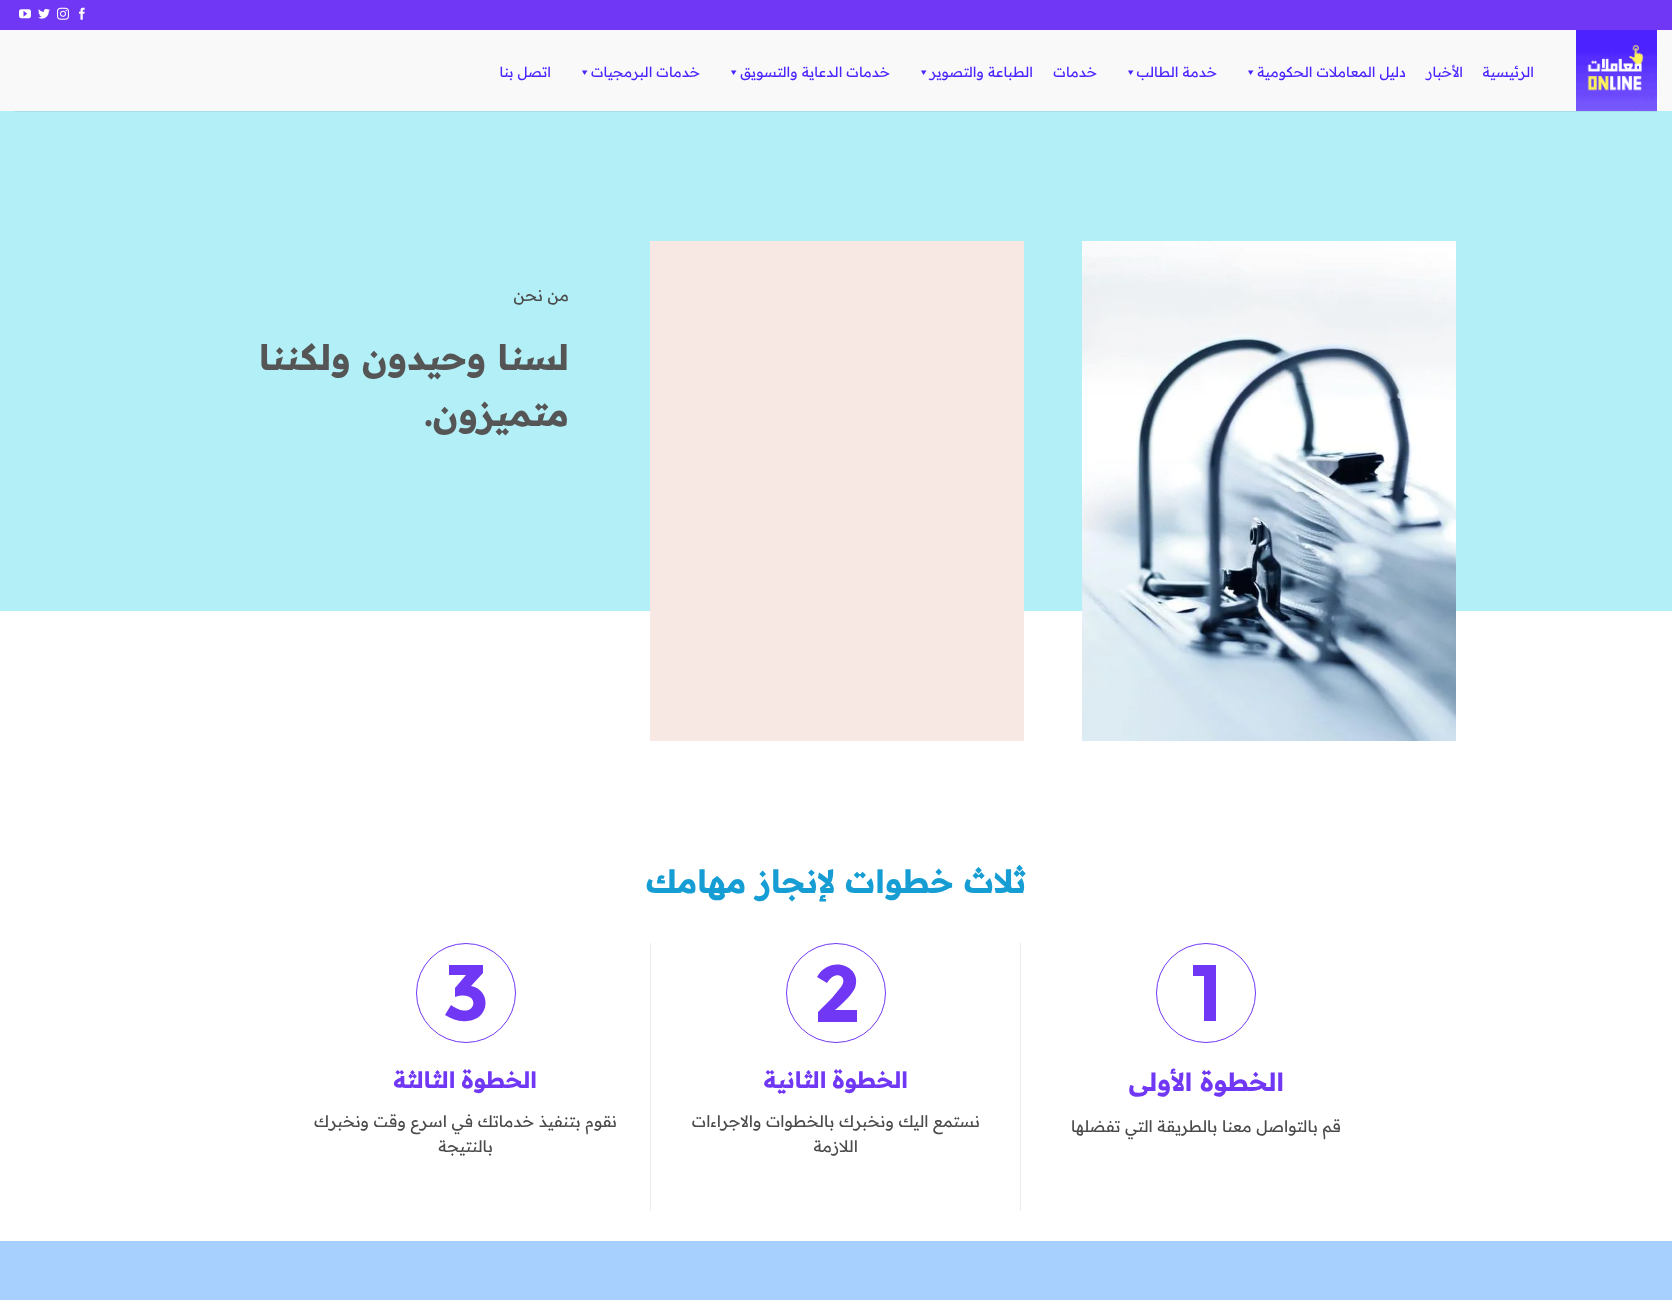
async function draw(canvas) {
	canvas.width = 1672;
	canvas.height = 1300;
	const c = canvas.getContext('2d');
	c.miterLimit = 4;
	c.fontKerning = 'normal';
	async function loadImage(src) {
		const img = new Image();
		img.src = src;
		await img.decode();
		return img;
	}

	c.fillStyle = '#fff';
	c.fillRect(0, 0, 1672, 1300);
	c.fillStyle = '#7038f4';
	c.fillRect(0, 0, 1672, 30);
	c.drawImage(await loadImage('img1.png'), 79, 7, 6, 13);
	c.drawImage(await loadImage('img2.png'), 57, 7, 12, 13);
	c.drawImage(await loadImage('img3.png'), 38, 8, 12, 11);
	c.drawImage(await loadImage('img4.png'), 19, 9, 12, 10);
	c.fillStyle = '#f9f9f9';
	c.fillRect(0, 30, 1672, 81);
	c.drawImage(await loadImage('img5.png'), 1576, 30, 81, 81);
	c.direction = 'rtl';
	c.font = '14px Readex Pro';
	c.fillStyle = '#4c22ff';
	for (const [text, x, y] of [
		['الرئيسية', 1534, 77],
		['الأخبار', 1463, 77],
		['دليل المعاملات الحكومية', 1406, 77],
	]) {
		c.fillText(text, x, y);
	}
	c.beginPath();
	c.moveTo(1253.5, 70.5);
	c.lineTo(1250.5, 75);
	c.lineTo(1248, 70.5);
	c.closePath();
	c.fill();
	c.fillText('خدمة الطالب', 1217, 77);
	c.beginPath();
	c.moveTo(1133.5, 70.5);
	c.lineTo(1130.5, 75);
	c.lineTo(1128, 70.5);
	c.closePath();
	c.fill();
	c.fillText('خدمات', 1097, 77);
	c.fillText('الطباعة والتصوير', 1033, 77);
	c.beginPath();
	c.moveTo(926.5, 70.5);
	c.lineTo(923.5, 75);
	c.lineTo(921, 70.5);
	c.closePath();
	c.fill();
	c.fillText('خدمات الدعاية والتسويق', 890, 77);
	c.beginPath();
	c.moveTo(736.5, 70.5);
	c.lineTo(733.5, 75);
	c.lineTo(731, 70.5);
	c.closePath();
	c.fill();
	c.fillText('خدمات البرمجيات', 700, 77);
	c.beginPath();
	c.moveTo(587.5, 70.5);
	c.lineTo(584.5, 75);
	c.lineTo(582, 70.5);
	c.closePath();
	c.fill();
	c.fillText('اتصل بنا', 551, 77);
	c.fillStyle = '#b3eff7';
	c.fillRect(0, 111, 1672, 500);
	c.fillStyle = '#a8dee6';
	c.fillRect(15, 111, 1642, 1);
	c.drawImage(await loadImage('img6.png'), 1082, 241, 374, 500);
	c.fillStyle = '#f8e8e3';
	c.fillRect(650, 241, 374, 500);
	c.font = '16px Readex Pro';
	c.fillStyle = '#4a4a4a';
	c.fillText('من نحن', 569, 301);
	c.font = 'bold 35px Readex Pro';
	c.fillStyle = '#555';
	c.fillText('لسنا وحيدون ولكننا', 569, 370);
	c.fillText('متميزون.', 569, 426);
	c.font = 'bold 32px Readex Pro';
	c.fillStyle = '#169ed4';
	c.fillText('ثلاث خطوات لإنجاز مهامك', 1026, 893);
	c.beginPath();
	c.arc(1206, 993, 49.5, 0, 2 * Math.PI);
	c.strokeStyle = '#7038f4';
	c.stroke();
	c.fillStyle = '#7038f4';
	c.beginPath();
	c.moveTo(1193, 965);
	c.lineTo(1216, 965);
	c.lineTo(1216, 1021);
	c.lineTo(1204, 1021);
	c.lineTo(1204, 976);
	c.lineTo(1193, 976);
	c.closePath();
	c.fill();
	c.font = 'bold 25px Readex Pro';
	c.fillText('الخطوة الأولى', 1284, 1091);
	c.font = '16px Readex Pro';
	c.fillStyle = '#4a4a4a';
	c.fillText('قم بالتواصل معنا بالطريقة التي تفضلها', 1341, 1132);
	c.fillStyle = '#ececec';
	c.fillRect(1020, 943, 1, 268);
	c.beginPath();
	c.arc(836, 993, 49.5, 0, 2 * Math.PI);
	c.stroke();
	c.fillStyle = '#7038f4';
	c.beginPath();
	c.moveTo(841, 987);
	c.bezierCurveTo(849, 976, 835, 969, 827, 983);
	c.lineTo(817, 977);
	c.bezierCurveTo(830, 954, 863, 966, 855, 988);
	c.bezierCurveTo(851, 996, 842, 1004, 835, 1010);
	c.lineTo(857, 1010);
	c.lineTo(857, 1022);
	c.lineTo(818, 1022);
	c.lineTo(818, 1012);
	c.lineTo(832, 998);
	c.closePath();
	c.fill();
	c.wordSpacing = '-1px';
	c.font = 'bold 22.5px Readex Pro';
	c.fillText('الخطوة الثانية', 908, 1088);
	c.wordSpacing = '0px';
	c.font = '16px Readex Pro';
	c.fillStyle = '#4a4a4a';
	c.fillText('نستمع اليك ونخبرك بالخطوات والاجراءات', 980, 1127);
	c.fillText('اللازمة', 858, 1152);
	c.fillStyle = '#ececec';
	c.fillRect(650, 943, 1, 268);
	c.beginPath();
	c.arc(466, 993, 49.5, 0, 2 * Math.PI);
	c.stroke();
	c.fillStyle = '#7038f4';
	c.beginPath();
	c.moveTo(449, 975);
	c.lineTo(449, 965);
	c.lineTo(483, 965);
	c.lineTo(483, 973);
	c.lineTo(471, 986);
	c.bezierCurveTo(492, 990, 490, 1020, 467, 1021);
	c.bezierCurveTo(459, 1022, 452, 1019, 445, 1015);
	c.lineTo(451, 1005);
	c.bezierCurveTo(477, 1024, 483, 988, 455, 997);
	c.lineTo(455, 988);
	c.lineTo(466, 975);
	c.closePath();
	c.fill();
	c.wordSpacing = '-1px';
	c.font = 'bold 22.5px Readex Pro';
	c.fillText('الخطوة الثالثة', 537, 1088);
	c.wordSpacing = '0px';
	c.font = '16px Readex Pro';
	c.fillStyle = '#4a4a4a';
	c.fillText('نقوم بتنفيذ خدماتك في اسرع وقت ونخبرك', 617, 1127);
	c.fillText('بالنتيجة', 493, 1152);
	c.fillStyle = '#a7d0ff';
	c.fillRect(0, 1241, 1672, 59);
}

draw(document.querySelector('canvas'));
